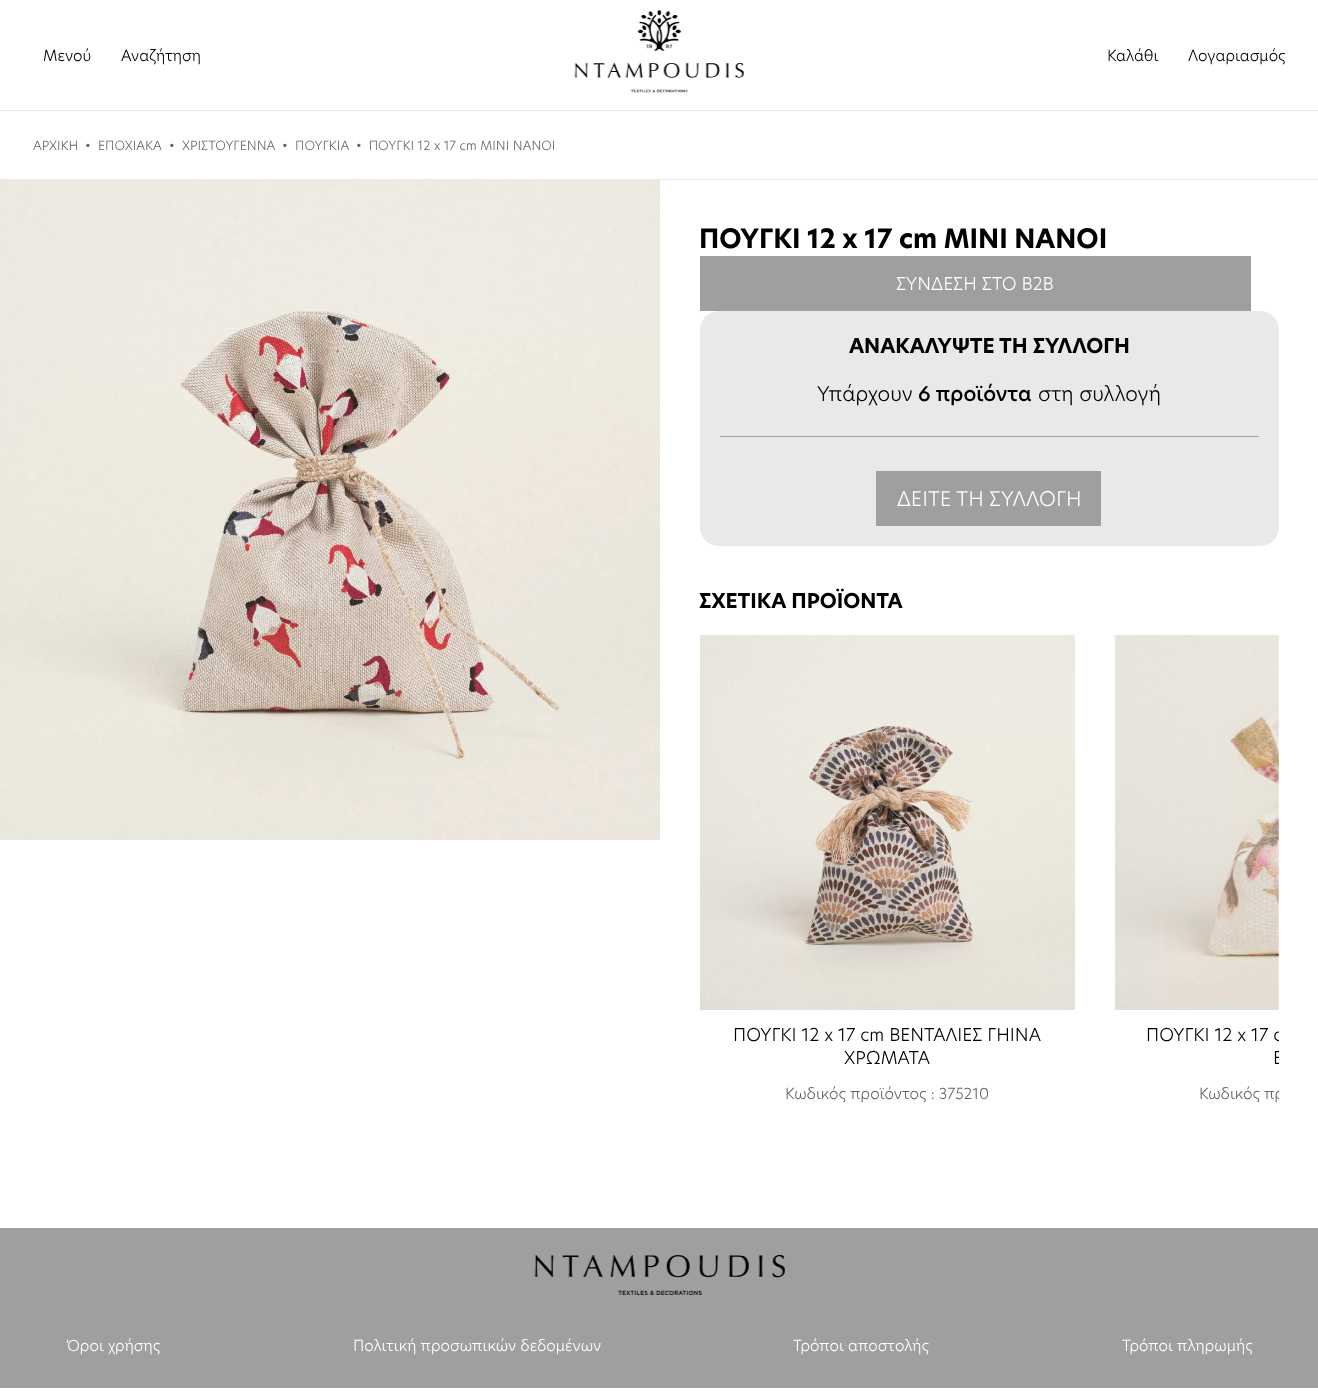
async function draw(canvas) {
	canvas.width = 1318;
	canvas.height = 1397;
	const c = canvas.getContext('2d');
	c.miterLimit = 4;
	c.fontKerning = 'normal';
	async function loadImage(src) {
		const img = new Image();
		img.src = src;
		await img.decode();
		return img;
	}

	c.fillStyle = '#fff';
	c.fillRect(0, 0, 1318, 1397);
	c.font = '300 15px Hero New';
	c.fillStyle = '#000';
	c.fillText('Μενού', 43, 61);
	c.fillText('Αναζήτηση', 121, 61);
	c.drawImage(await loadImage('img1.png'), 574, 10, 170, 83);
	c.fillText('Καλάθι', 1107, 61);
	c.fillText('Λογαριασμός', 1188, 61);
	c.fillStyle = '#e9e9e9';
	c.fillRect(0, 110, 1318, 1);
	c.fillRect(0, 179, 1318, 1);
	c.font = '300 12.5px Hero New';
	c.fillStyle = '#666';
	for (const [text, x, y] of [
		['ΑΡΧΙΚΗ', 33, 150],
		['•', 85, 150],
		['ΕΠΟΧΙΑΚΑ', 98, 150],
		['•', 169, 150],
		['ΧΡΙΣΤΟΥΓΕΝΝΑ', 182, 150],
		['•', 282, 150],
		['ΠΟΥΓΚΙΑ', 295, 150],
		['•  ΠΟΥΓΚΙ 12 x 17 cm ΜΙΝΙ ΝΑΝΟΙ', 356, 150],
	]) {
		c.fillText(text, x, y);
	}
	c.drawImage(await loadImage('img2.png'), 0, 180, 660, 660);
	c.font = 'bold 26.25px Hero New';
	c.fillStyle = '#000';
	c.fillText('ΠΟΥΓΚΙ 12 x 17 cm ΜΙΝΙ ΝΑΝΟΙ', 699, 248);
	c.fillStyle = '#9ea09d';
	c.fillRect(700, 256, 551, 55);
	c.font = '300 17.5px Hero New';
	c.fillStyle = '#fff';
	c.fillText('ΣΥΝΔΕΣΗ ΣΤΟ B2B', 896, 290);
	c.fillStyle = '#e9e9e9';
	c.beginPath();
	c.roundRect(700, 311, 579, 235, 19);
	c.fill();
	c.font = 'bold 20px Hero New';
	c.fillStyle = '#000';
	c.fillText('ΑΝΑΚΑΛΥΨΤΕ ΤΗ ΣΥΛΛΟΓΗ', 849, 353);
	c.font = '300 20px Hero New';
	c.fillText('Υπάρχουν', 817, 401);
	c.font = '500 20px Hero New';
	c.fillText('6 προϊόντα', 918, 401);
	c.font = '300 20px Hero New';
	c.fillText('στη συλλογή', 1038, 401);
	c.fillStyle = '#a2a2a2';
	c.fillRect(720, 436, 539, 1);
	c.fillStyle = '#9ea09d';
	c.fillRect(876, 471, 225, 55);
	c.fillStyle = '#fff';
	c.fillText('ΔΕΙΤΕ ΤΗ ΣΥΛΛΟΓΗ', 897, 506);
	c.font = 'bold 20px Hero New';
	c.fillStyle = '#000';
	c.fillText('ΣΧΕΤΙΚΑ ΠΡΟΪΟΝΤΑ', 699, 608);
	c.drawImage(await loadImage('img3.png'), 700, 635, 375, 375);
	c.font = '300 17.5px Hero New';
	c.fillText('ΠΟΥΓΚΙ 12 x 17 cm ΒΕΝΤΑΛΙΕΣ ΓΗΙΝΑ', 733, 1041);
	c.fillText('ΧΡΩΜΑΤΑ', 844, 1064);
	c.font = '300 15px Hero New';
	c.fillStyle = '#666';
	c.fillText('Κωδικός προϊόντος : 375210', 785, 1099);
	c.drawImage(await loadImage('img4.png'), 1114, 635, 165, 375);
	c.save();
	c.beginPath();
	c.rect(700, 635, 579, 469);
	c.clip();
	c.font = '300 17.5px Hero New';
	c.fillStyle = '#000';
	c.fillText('ΠΟΥΓΚΙ 12 x 17 c', 1146, 1041);
	c.fillText('Ε', 1273, 1064);
	c.font = '300 15px Hero New';
	c.fillStyle = '#666';
	c.fillText('Κωδικός πρ', 1199, 1099);
	c.restore();
	c.fillStyle = '#9ea09d';
	c.fillRect(0, 1228, 1318, 160);
	c.drawImage(await loadImage('img5.png'), 534, 1255, 251, 40);
	c.fillStyle = '#fff';
	for (const [text, x, y] of [
		['Όροι χρήσης', 66, 1351],
		['Πολιτική προσωπικών δεδομένων', 353, 1351],
		['Τρόποι αποστολής', 793, 1351],
		['Τρόποι πληρωμής', 1122, 1351],
	]) {
		c.fillText(text, x, y);
	}
}

draw(document.querySelector('canvas'));
